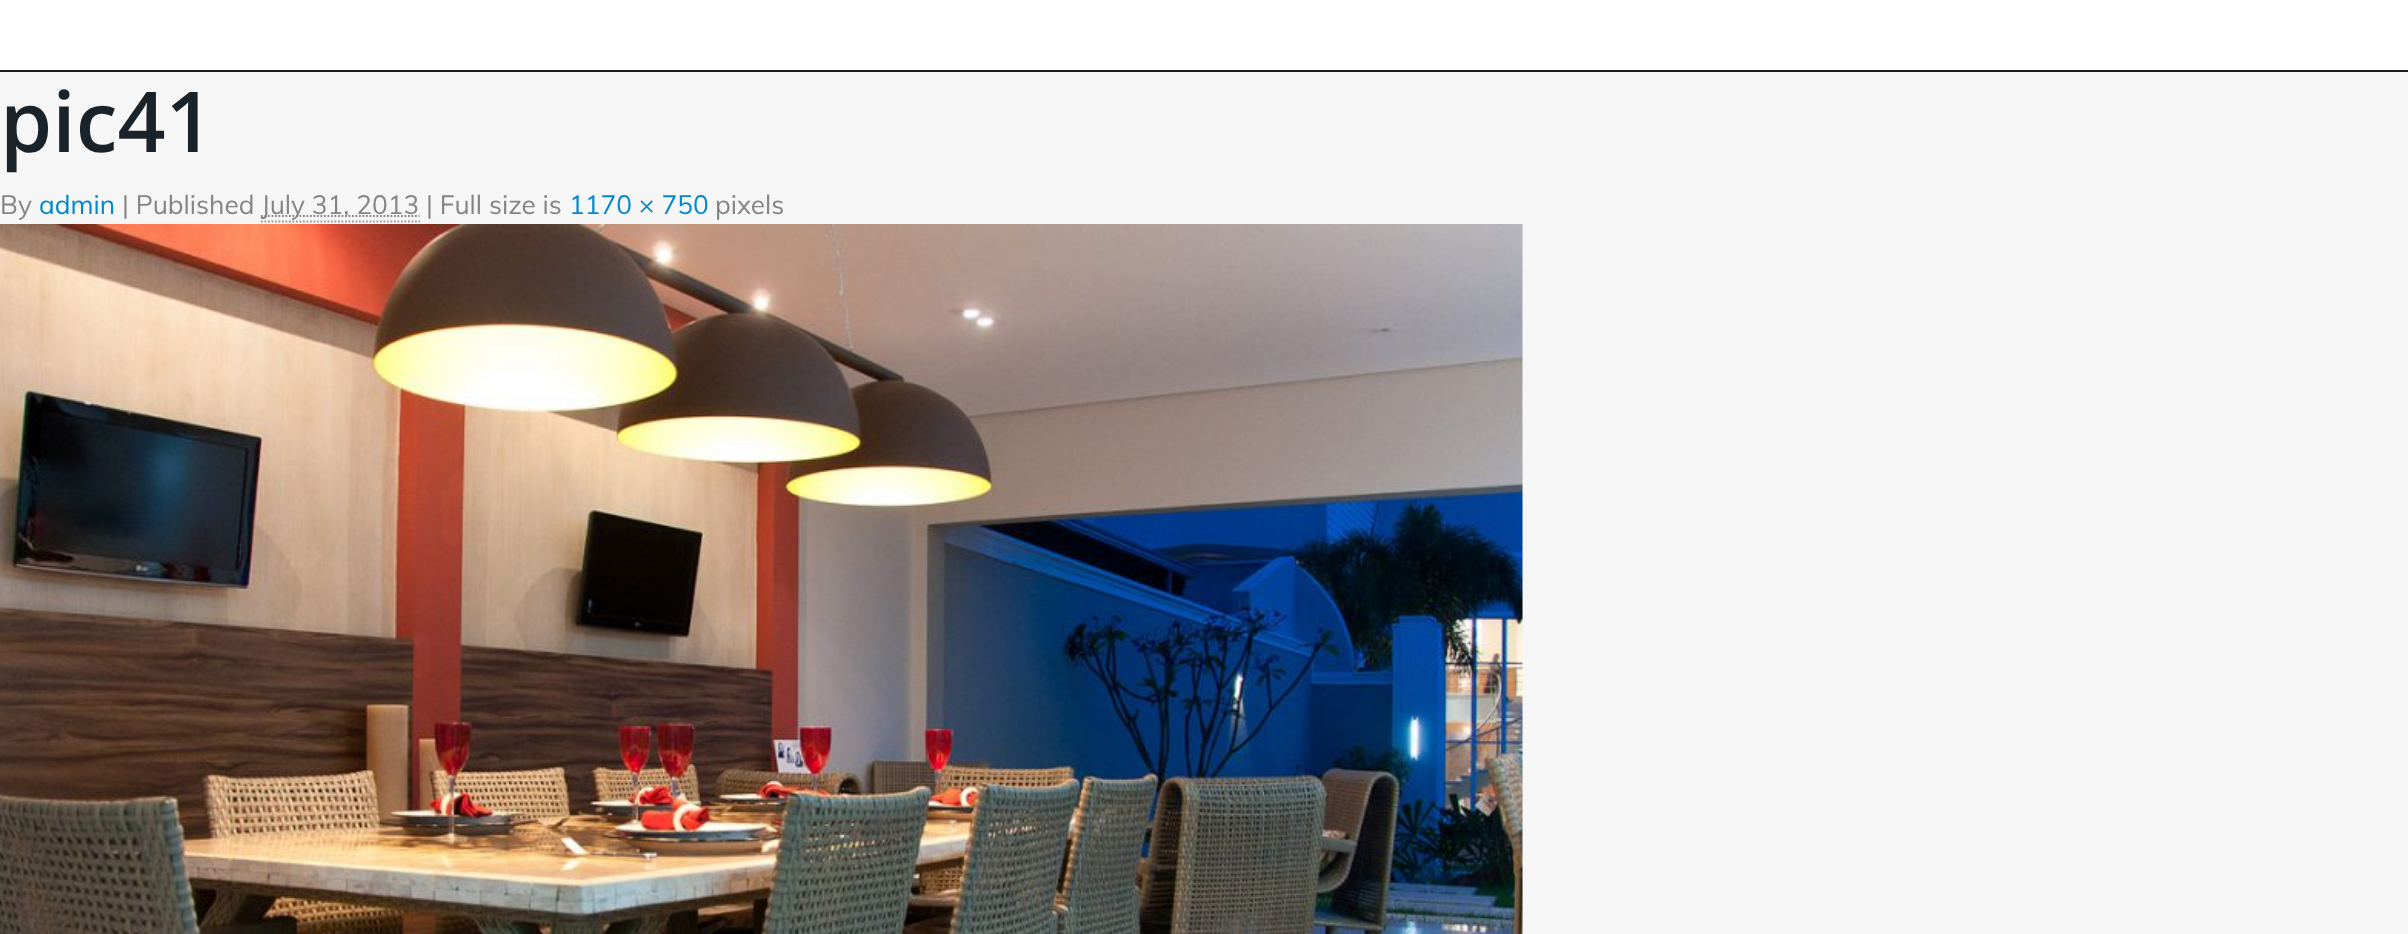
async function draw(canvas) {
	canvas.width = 2408;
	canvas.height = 934;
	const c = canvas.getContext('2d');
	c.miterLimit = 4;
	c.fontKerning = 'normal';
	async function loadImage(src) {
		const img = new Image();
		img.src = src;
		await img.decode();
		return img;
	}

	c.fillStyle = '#f6f6f6';
	c.fillRect(0, 0, 2408, 934);
	c.fillStyle = '#1b1b1b';
	c.fillRect(0, 70, 2408, 2);
	c.fillStyle = '#fff';
	c.fillRect(0, 0, 2408, 70);
	c.font = '600 84px Open Sans';
	c.fillStyle = '#1b232a';
	c.fillText('pic41', 0, 152);
	c.font = '26.25px Muli';
	c.fillStyle = '#848484';
	c.fillText('By', 0, 214);
	c.fillStyle = '#08c';
	c.fillText('admin', 39, 214);
	c.fillStyle = '#848484';
	c.fillText('| Published', 122, 214);
	c.beginPath();
	c.moveTo(261, 216);
	c.lineTo(419.5, 216);
	c.strokeStyle = '#848484';
	c.lineWidth = 1.8;
	c.setLineDash([1.75, 1.75]);
	c.stroke();
	c.fillText('July 31, 2013 | Full size is', 261, 214);
	c.beginPath();
	c.moveTo(261, 221.5);
	c.lineTo(420, 221.5);
	c.strokeStyle = '#999';
	c.stroke();
	c.fillStyle = '#08c';
	c.fillText('1170 × 750', 569, 214);
	c.fillStyle = '#848484';
	c.fillText('pixels', 715, 214);
	c.drawImage(await loadImage('img1.png'), 0, 224, 1523, 710);
}

draw(document.querySelector('canvas'));
